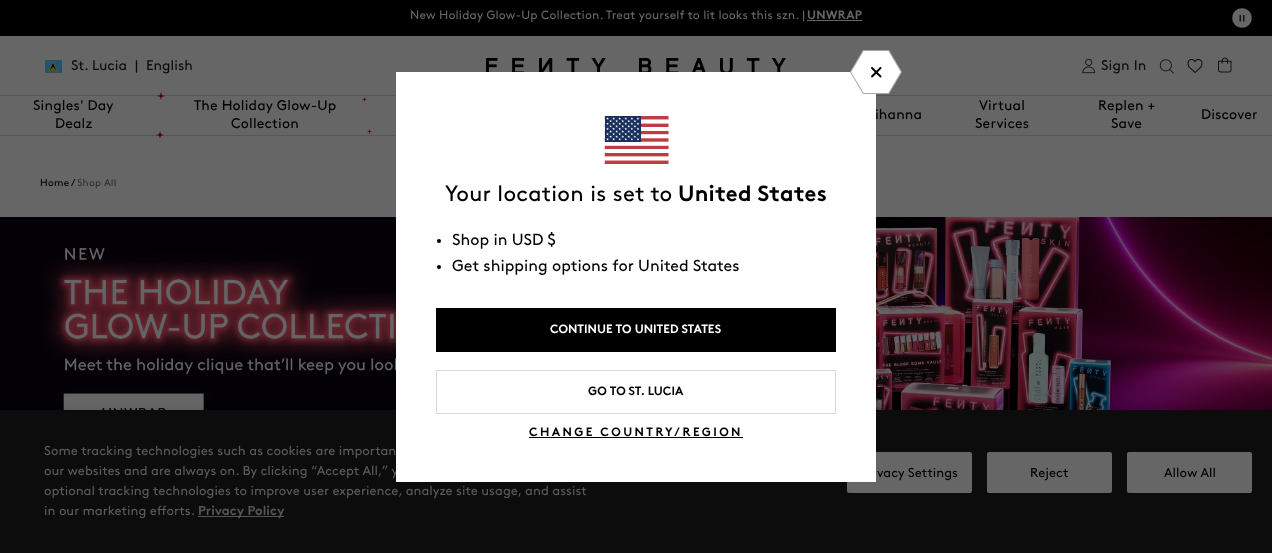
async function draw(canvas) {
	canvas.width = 1272;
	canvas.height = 553;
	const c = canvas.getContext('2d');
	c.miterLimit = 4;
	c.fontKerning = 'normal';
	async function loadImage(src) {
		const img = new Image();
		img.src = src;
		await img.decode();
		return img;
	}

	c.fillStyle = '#666';
	c.fillRect(0, 0, 1272, 553);
	c.fillStyle = '#000';
	c.fillRect(0, 0, 1272, 36);
	c.letterSpacing = '0.15px';
	c.font = '12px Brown';
	c.fillStyle = '#666';
	c.fillText('New Holiday Glow-Up Collection. Treat yourself to lit looks this szn. |', 410, 19);
	c.font = 'bold 12px Brown';
	c.fillText('UNWRAP', 807, 19);
	c.fillRect(807, 20, 55, 1);
	c.drawImage(await loadImage('img1.png'), 1232, 8, 20, 20);
	c.fillStyle = '#565656';
	c.fillRect(0, 95, 1272, 1);
	c.drawImage(await loadImage('img2.png'), 45, 60, 17, 13);
	c.letterSpacing = '0px';
	c.font = '14px Brown';
	c.fillStyle = '#0e0c0d';
	for (const [text, x, y] of [
		['St. Lucia', 71, 70],
		['|', 135, 70],
		['English', 146, 70],
	]) {
		c.fillText(text, x, y);
	}
	c.drawImage(await loadImage('img3.png'), 486, 58, 300, 14);
	c.drawImage(await loadImage('img4.png'), 1082, 58, 14, 16);
	c.letterSpacing = '0.15px';
	c.fillText('Sign In', 1101, 70);
	c.drawImage(await loadImage('img5.png'), 1159, 59, 15, 15);
	c.drawImage(await loadImage('img6.png'), 1187, 59, 16, 14);
	c.drawImage(await loadImage('img7.png'), 1218, 57, 14, 16);
	c.fillStyle = '#565656';
	c.fillRect(0, 135, 1272, 1);
	c.fillStyle = '#000';
	c.fillText('Singles\' Day', 33, 110);
	c.fillText('Dealz', 55, 128);
	c.drawImage(await loadImage('img8.png'), 362, 97, 5, 5);
	c.drawImage(await loadImage('img9.png'), 157, 92, 8, 8);
	c.fillText('The Holiday Glow-Up', 194, 110);
	c.fillText('Collection', 231, 128);
	c.drawImage(await loadImage('img10.png'), 367, 129, 5, 5);
	c.drawImage(await loadImage('img11.png'), 156, 131, 8, 8);
	for (const [text, x, y] of [
		['ihanna', 875, 119],
		['Virtual', 979, 110],
		['Services', 975, 128],
		['Replen +', 1098, 110],
		['Save', 1111, 128],
		['Discover', 1201, 119],
	]) {
		c.fillText(text, x, y);
	}
	c.letterSpacing = '0.25px';
	c.font = '10px Brown';
	c.fillText('Home', 40, 186);
	c.fillText('/', 71, 186);
	c.fillStyle = '#303030';
	c.fillText('Shop All', 77, 186);
	c.drawImage(await loadImage('img12.png'), 0, 217, 1272, 193);
	c.fillStyle = '#0000002e';
	c.filter = 'blur(3px)';
	c.beginPath();
	c.rect(0, 410, 1272, 143);
	c.fill();
	c.filter = 'none';
	c.fillStyle = '#0c0c0c';
	c.fillRect(0, 410, 1272, 143);
	c.letterSpacing = '0px';
	c.font = '13px Brown';
	c.fillStyle = '#5b5b5b';
	c.fillText('our websites and are always on. By clicking “Accept All,” y', 44, 475);
	c.fillStyle = '#666';
	c.beginPath();
	c.roundRect(847, 452, 125, 41, 2);
	c.fill();
	c.fillStyle = '#fff';
	c.fillRect(396, 72, 480, 410);
	c.drawImage(await loadImage('img13.png'), 850, 50, 52, 44);
	c.drawImage(await loadImage('img14.png'), 604, 116, 65, 48);
	c.letterSpacing = '0.25px';
	c.font = '22px Brown';
	c.fillStyle = '#000';
	c.fillText('Your location is set to', 445, 201);
	c.font = 'bold 22px Brown';
	c.fillText('United States', 678, 201);
	c.beginPath();
	c.arc(439, 241, 2, 0, 2 * Math.PI);
	c.fill();
	c.letterSpacing = '0px';
	c.font = '16px Brown';
	c.fillText('Shop in USD $', 452, 245);
	c.beginPath();
	c.arc(439, 267, 2, 0, 2 * Math.PI);
	c.fill();
	c.fillText('Get shipping options for United States', 452, 271);
	c.fillRect(436, 308, 400, 44);
	c.font = 'bold 12px Brown';
	c.fillStyle = '#fff';
	c.fillText('CONTINUE TO UNITED STATES', 550, 333);
	c.strokeStyle = '#d8d8d8';
	c.strokeRect(436.5, 370.5, 399, 43);
	c.fillStyle = '#000';
	c.fillText('GO TO ST. LUCIA', 588, 395);
	c.letterSpacing = '2.4px';
	c.fillText('CHANGE COUNTRY/REGION', 529, 436);
	c.fillRect(529, 437, 214, 1);
	c.letterSpacing = '0px';
	c.font = '13px Brown';
	c.fillStyle = '#5b5b5b';
	c.fillText('Some tracking technologies such as cookies are importan', 44, 455);
	c.fillStyle = '#000';
	c.fillText('vacy Settings', 877, 477);
	c.fillStyle = '#5b5b5b';
	c.fillText('optional tracking technologies to improve user experience, analyze site usage, and assist', 44, 495);
	c.fillText('in our marketing efforts.', 44, 515);
	c.fillStyle = '#545454';
	c.fillRect(198, 516, 86, 1);
	c.font = 'bold 13px Brown';
	c.fillText('Privacy Policy', 198, 515);
	c.fillStyle = '#666';
	c.beginPath();
	c.roundRect(987, 452, 125, 41, 2);
	c.fill();
	c.font = '13px Brown';
	c.fillStyle = '#000';
	c.fillText('Reject', 1030, 477);
	c.fillStyle = '#666';
	c.beginPath();
	c.roundRect(1127, 452, 125, 41, 2);
	c.fill();
	c.fillStyle = '#000';
	c.fillText('Allow All', 1164, 477);
}

draw(document.querySelector('canvas'));
